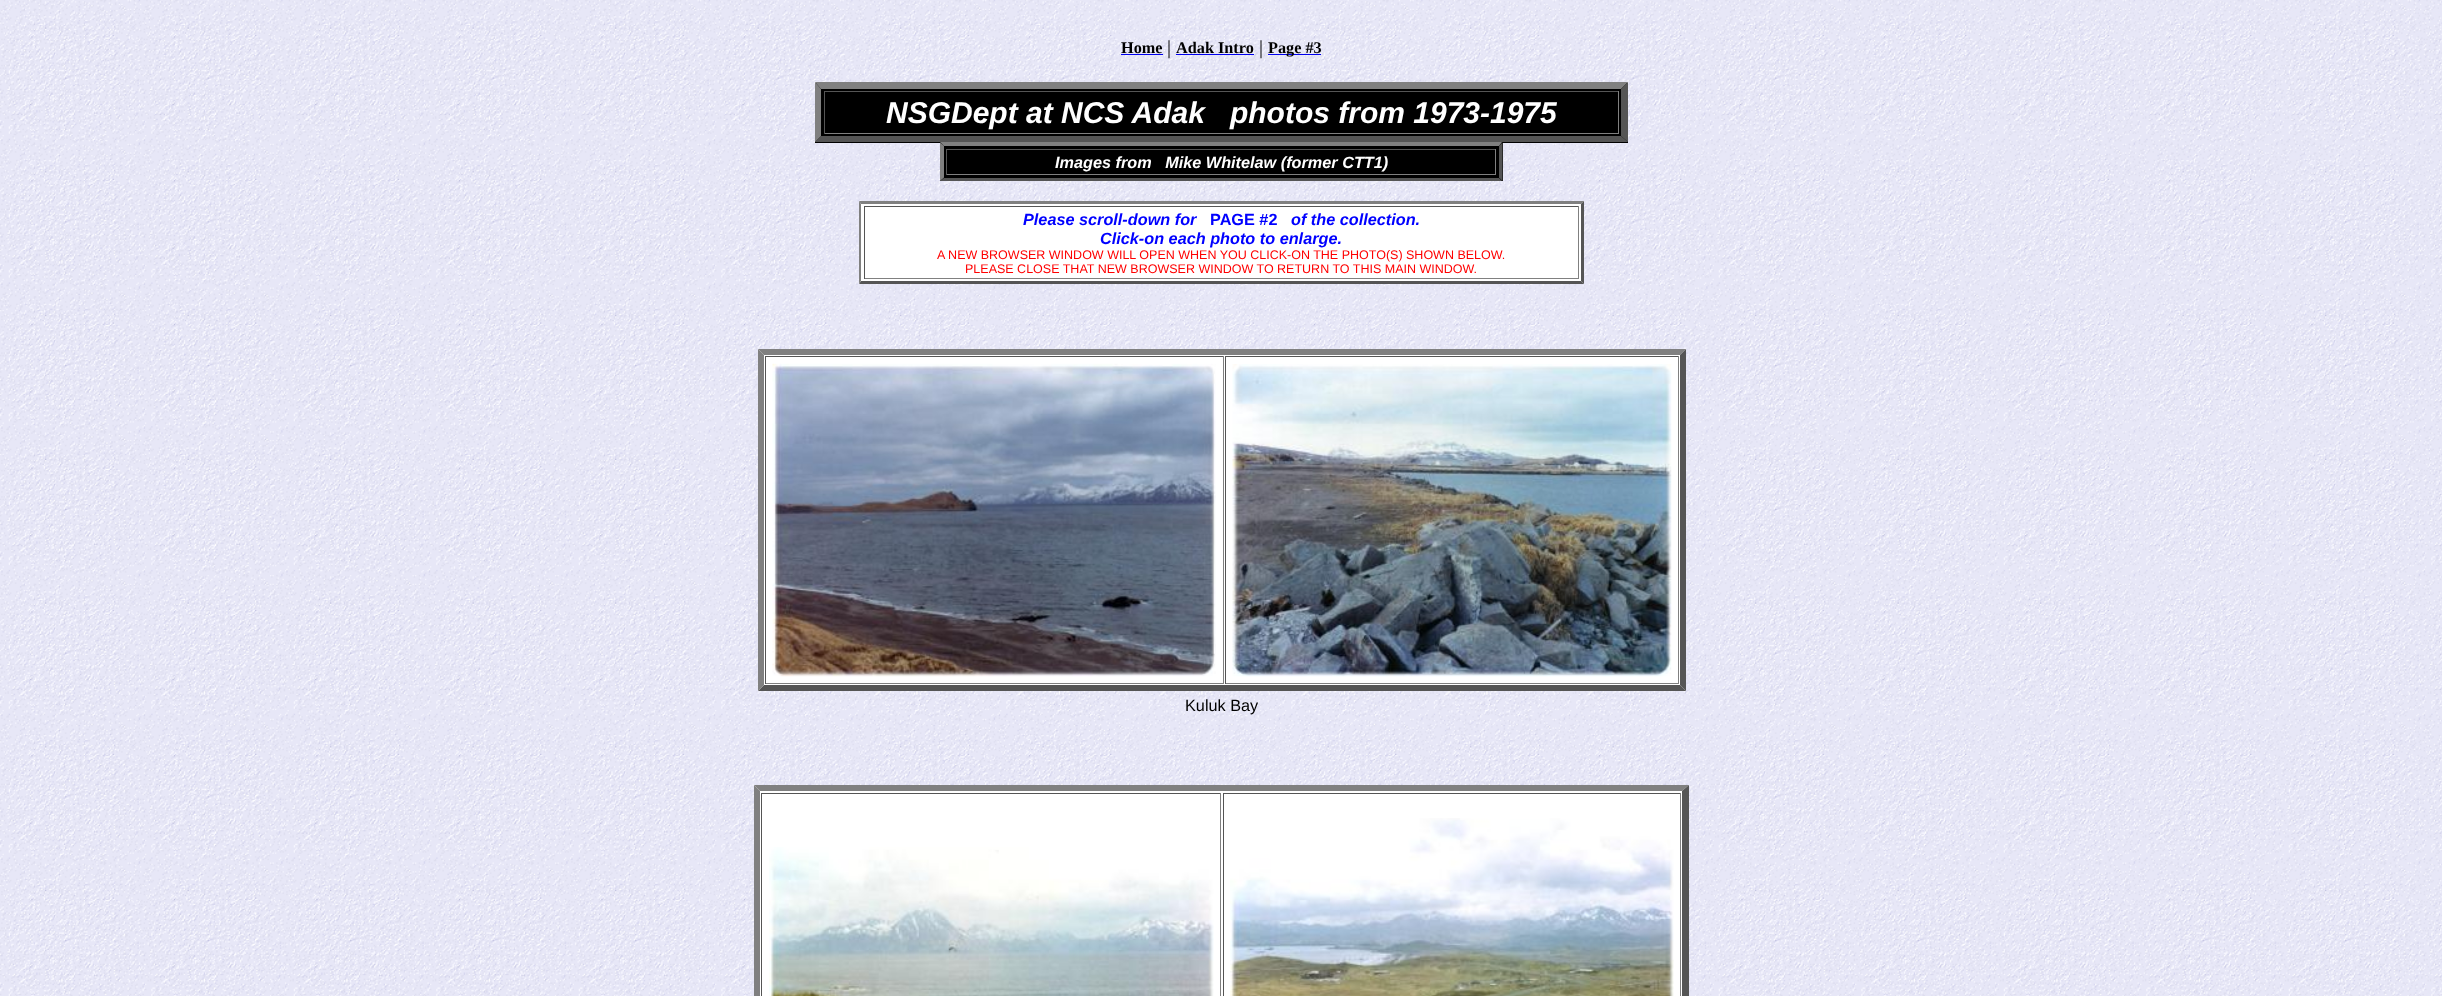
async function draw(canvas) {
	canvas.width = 2442;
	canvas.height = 996;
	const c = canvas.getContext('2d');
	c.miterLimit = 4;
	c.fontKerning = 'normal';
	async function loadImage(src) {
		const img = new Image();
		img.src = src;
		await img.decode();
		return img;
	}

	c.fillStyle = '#fff';
	c.fillRect(0, 0, 2442, 996);
	c.drawImage(await loadImage('img1.png'), 0, 0, 2442, 996);
	c.font = 'bold 16.25px Liberation Serif';
	c.fillStyle = '#000';
	c.fillText('Home', 1121, 53);
	c.fillStyle = '#00e';
	c.fillRect(1121, 54, 42, 1);
	c.font = '20px Liberation Serif';
	c.fillStyle = '#000';
	c.fillText('|', 1167, 54);
	c.font = 'bold 16.25px Liberation Serif';
	c.fillText('Adak Intro', 1176, 53);
	c.fillStyle = '#00e';
	c.fillRect(1176, 54, 78, 1);
	c.font = '20px Liberation Serif';
	c.fillStyle = '#000';
	c.fillText('|', 1259, 54);
	c.fillStyle = '#00e';
	c.fillRect(1268, 54, 53, 1);
	c.font = 'bold 16.25px Liberation Serif';
	c.fillStyle = '#000';
	c.fillText('Page #3', 1268, 53);
	c.fillRect(815, 83, 813, 60);
	c.fillStyle = '#808080';
	c.beginPath();
	c.moveTo(815, 82);
	c.lineTo(1628, 82);
	c.lineTo(1621, 89);
	c.lineTo(821, 89);
	c.closePath();
	c.fill();
	c.fillStyle = '#555';
	c.beginPath();
	c.moveTo(1628, 82);
	c.lineTo(1628, 142);
	c.lineTo(1621, 136);
	c.lineTo(1621, 89);
	c.closePath();
	c.fill();
	c.beginPath();
	c.moveTo(1628, 142);
	c.lineTo(815, 142);
	c.lineTo(821, 136);
	c.lineTo(1621, 136);
	c.closePath();
	c.fill();
	c.fillStyle = '#808080';
	c.beginPath();
	c.moveTo(815, 142);
	c.lineTo(815, 82);
	c.lineTo(821, 89);
	c.lineTo(821, 136);
	c.closePath();
	c.fill();
	for (const [x, y, w, h, color] of [
		[824, 91, 795, 1, '#555'],
		[1618, 91, 1, 43, '#808080'],
		[824, 133, 795, 1, '#808080'],
		[824, 91, 1, 43, '#555'],
	]) {
		c.fillStyle = color;
		c.fillRect(x, y, w, h);
	}
	c.font = 'italic bold 30px Liberation Sans';
	c.fillStyle = '#fff';
	c.fillText('NSGDept at NCS Adak   photos from 1973-1975', 886, 123);
	c.fillStyle = '#000';
	c.fillRect(940, 143, 563, 38);
	c.fillStyle = '#808080';
	c.beginPath();
	c.moveTo(940, 142);
	c.lineTo(1502, 142);
	c.lineTo(1499, 146);
	c.lineTo(944, 146);
	c.closePath();
	c.fill();
	c.fillStyle = '#555';
	c.beginPath();
	c.moveTo(1502.5, 142.5);
	c.lineTo(1502.5, 181);
	c.lineTo(1499, 177.5);
	c.lineTo(1499, 146);
	c.closePath();
	c.fill();
	c.beginPath();
	c.moveTo(1502, 181);
	c.lineTo(940, 181);
	c.lineTo(944, 178);
	c.lineTo(1499, 178);
	c.closePath();
	c.fill();
	c.fillStyle = '#808080';
	c.beginPath();
	c.moveTo(940, 181);
	c.lineTo(940, 142.5);
	c.lineTo(944, 146);
	c.lineTo(944, 177.5);
	c.closePath();
	c.fill();
	for (const [x, y, w, h, color] of [
		[946, 149, 550, 1, '#555'],
		[1495, 149, 1, 26, '#808080'],
		[946, 174, 550, 1, '#808080'],
		[946, 149, 1, 26, '#555'],
	]) {
		c.fillStyle = color;
		c.fillRect(x, y, w, h);
	}
	c.font = 'italic bold 16.25px Liberation Sans';
	c.fillStyle = '#fff';
	c.fillText('Images from   Mike Whitelaw (former CTT1)', 1055, 168);
	c.fillRect(859, 201, 725, 83);
	c.fillStyle = '#808080';
	c.beginPath();
	c.moveTo(859, 201);
	c.lineTo(1584, 201);
	c.lineTo(1581, 204);
	c.lineTo(861, 204);
	c.closePath();
	c.fill();
	c.fillStyle = '#555';
	c.beginPath();
	c.moveTo(1584, 201);
	c.lineTo(1584, 284);
	c.lineTo(1581, 281);
	c.lineTo(1581, 204);
	c.closePath();
	c.fill();
	c.beginPath();
	c.moveTo(1584, 284);
	c.lineTo(859, 284);
	c.lineTo(861, 281);
	c.lineTo(1581, 281);
	c.closePath();
	c.fill();
	c.fillStyle = '#808080';
	c.beginPath();
	c.moveTo(859, 284);
	c.lineTo(859, 201);
	c.lineTo(861, 204);
	c.lineTo(861, 281);
	c.closePath();
	c.fill();
	for (const [x, y, w, h, color] of [
		[864, 206, 715, 1, '#555'],
		[1578, 206, 1, 73, '#808080'],
		[864, 278, 715, 1, '#808080'],
		[864, 206, 1, 73, '#555'],
	]) {
		c.fillStyle = color;
		c.fillRect(x, y, w, h);
	}
	c.fillStyle = '#00f';
	c.fillText('Please scroll-down for', 1023, 225);
	c.font = 'bold 16.25px Liberation Sans';
	c.fillText('PAGE #2', 1210, 225);
	c.font = 'italic bold 16.25px Liberation Sans';
	c.fillText('of the collection.', 1291, 225);
	c.fillText('Click-on each photo to enlarge.', 1100, 244);
	c.font = '12.5px Liberation Sans';
	c.fillStyle = '#f00';
	c.fillText('A NEW BROWSER WINDOW WILL OPEN WHEN YOU CLICK-ON THE PHOTO(S) SHOWN BELOW.', 937, 259);
	c.fillText('PLEASE CLOSE THAT NEW BROWSER WINDOW TO RETURN TO THIS MAIN WINDOW.', 965, 273);
	c.fillStyle = '#fff';
	c.fillRect(758, 349, 928, 342);
	c.fillStyle = '#808080';
	c.beginPath();
	c.moveTo(758, 349);
	c.lineTo(1686, 349);
	c.lineTo(1680, 355);
	c.lineTo(764, 355);
	c.closePath();
	c.fill();
	c.fillStyle = '#555';
	c.beginPath();
	c.moveTo(1686, 349);
	c.lineTo(1686, 691);
	c.lineTo(1680, 685);
	c.lineTo(1680, 355);
	c.closePath();
	c.fill();
	c.beginPath();
	c.moveTo(1686, 691);
	c.lineTo(758, 691);
	c.lineTo(764, 685);
	c.lineTo(1680, 685);
	c.closePath();
	c.fill();
	c.fillStyle = '#808080';
	c.beginPath();
	c.moveTo(758, 691);
	c.lineTo(758, 349);
	c.lineTo(764, 355);
	c.lineTo(764, 685);
	c.closePath();
	c.fill();
	for (const [x, y, w, h, color] of [
		[765, 356, 459, 1, '#555'],
		[1223, 356, 1, 328, '#808080'],
		[765, 683, 459, 1, '#808080'],
		[765, 356, 1, 328, '#555'],
	]) {
		c.fillStyle = color;
		c.fillRect(x, y, w, h);
	}
	c.drawImage(await loadImage('img2.png'), 772, 363, 444, 314);
	for (const [x, y, w, h, color] of [
		[1225, 356, 454, 1, '#555'],
		[1678, 356, 1, 328, '#808080'],
		[1225, 683, 454, 1, '#808080'],
		[1225, 356, 1, 328, '#555'],
	]) {
		c.fillStyle = color;
		c.fillRect(x, y, w, h);
	}
	c.drawImage(await loadImage('img3.png'), 1232, 364, 440, 313);
	c.font = '16.25px Liberation Sans';
	c.fillStyle = '#000';
	c.fillText('Kuluk Bay', 1185, 711);
	c.fillStyle = '#fff';
	c.fillRect(754, 785, 935, 211);
	c.fillStyle = '#808080';
	c.beginPath();
	c.moveTo(754, 785);
	c.lineTo(1689, 785);
	c.lineTo(1682, 791);
	c.lineTo(760, 791);
	c.closePath();
	c.fill();
	c.fillStyle = '#555';
	c.beginPath();
	c.moveTo(1689, 785);
	c.lineTo(1689, 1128);
	c.lineTo(1682, 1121);
	c.lineTo(1682, 791);
	c.closePath();
	c.fill();
	c.fillStyle = '#808080';
	c.beginPath();
	c.moveTo(754, 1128);
	c.lineTo(754, 785);
	c.lineTo(760, 791);
	c.lineTo(760, 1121);
	c.closePath();
	c.fill();
	for (const [x, y, w, h, color] of [
		[761, 793, 460, 1, '#555'],
		[1220, 793, 1, 203, '#808080'],
		[761, 793, 1, 203, '#555'],
	]) {
		c.fillStyle = color;
		c.fillRect(x, y, w, h);
	}
	c.drawImage(await loadImage('img4.png'), 769, 847, 445, 149);
	for (const [x, y, w, h, color] of [
		[1223, 793, 458, 1, '#555'],
		[1680, 793, 1, 203, '#808080'],
		[1223, 793, 1, 203, '#555'],
	]) {
		c.fillStyle = color;
		c.fillRect(x, y, w, h);
	}
	c.drawImage(await loadImage('img5.png'), 1230, 818, 444, 178);
}

draw(document.querySelector('canvas'));
